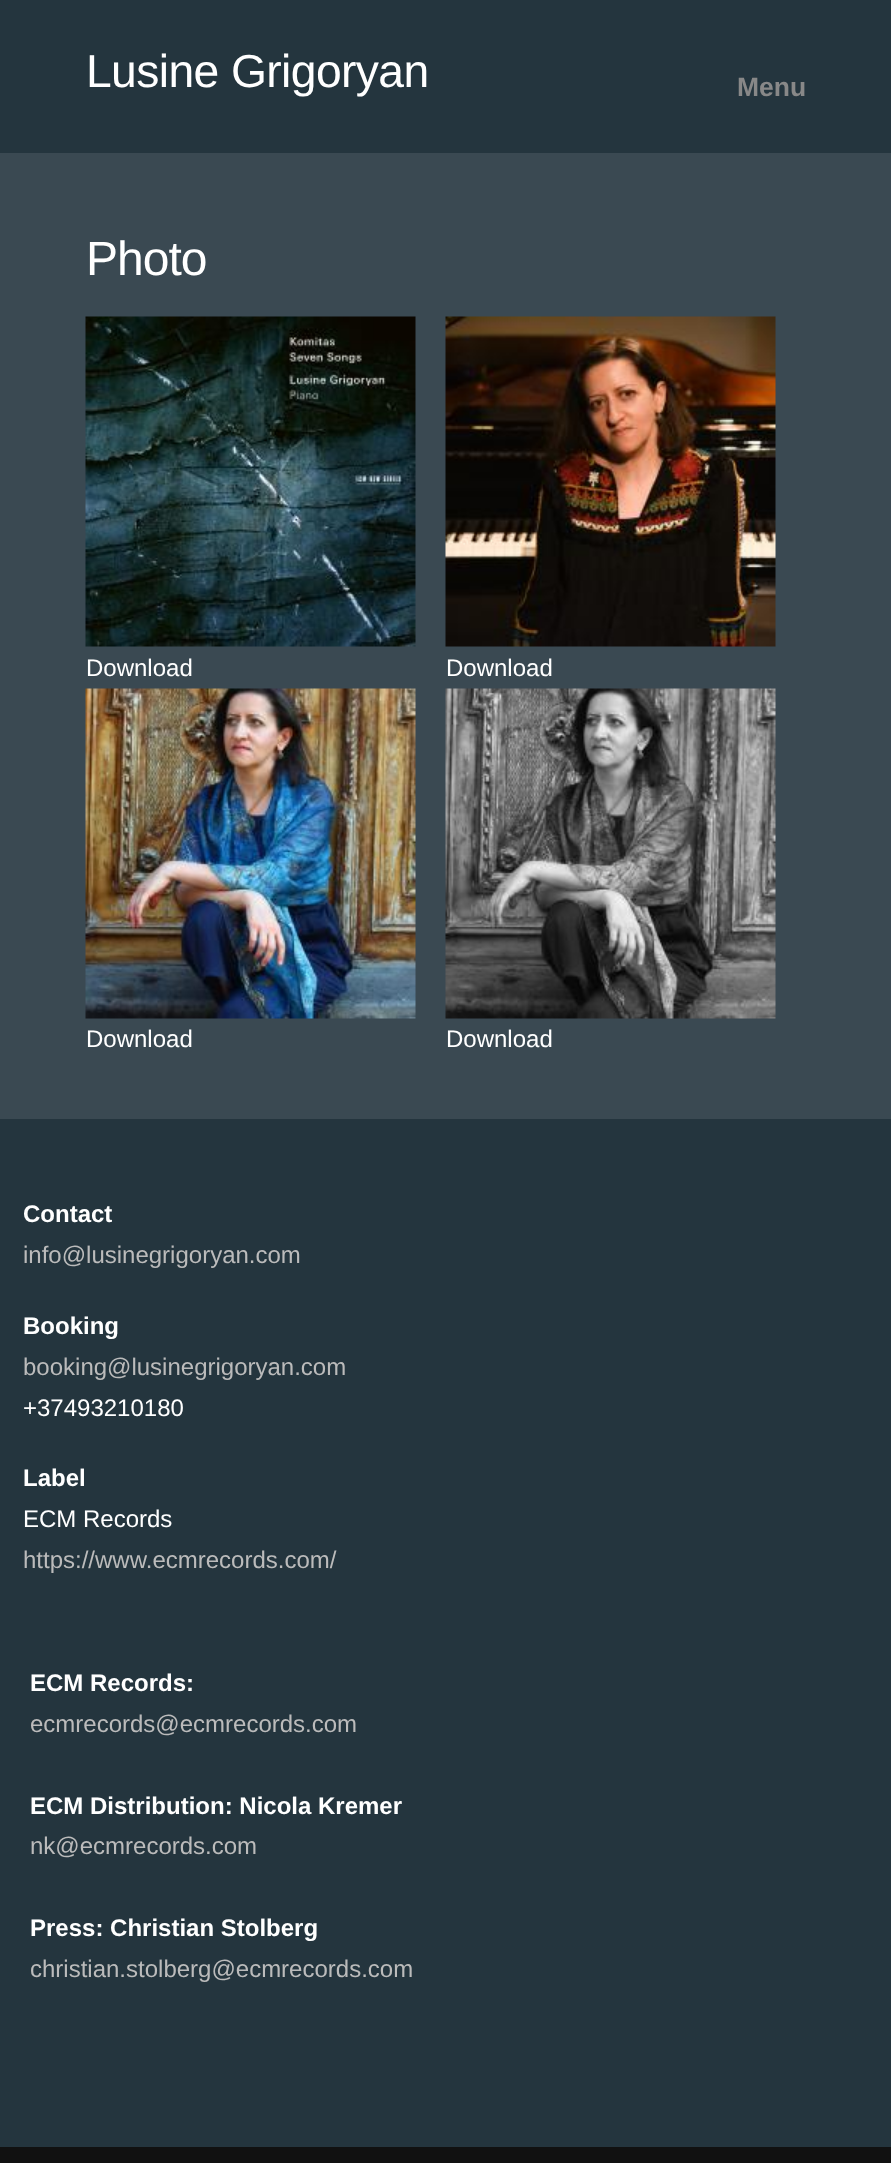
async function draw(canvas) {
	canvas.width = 891;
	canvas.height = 2163;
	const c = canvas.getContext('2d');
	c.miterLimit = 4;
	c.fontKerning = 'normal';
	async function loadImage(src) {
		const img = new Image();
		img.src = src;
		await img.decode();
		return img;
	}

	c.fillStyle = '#3a4952';
	c.fillRect(0, 0, 891, 2163);
	c.fillStyle = '#24353e';
	c.fillRect(0, 0, 891, 153);
	c.letterSpacing = '-0.6px';
	c.font = '46.25px Liberation Sans';
	c.fillStyle = '#fff';
	c.fillText('Lusine Grigoryan', 86, 87);
	c.letterSpacing = '0px';
	c.font = 'bold 26.5px Liberation Sans';
	c.fillStyle = '#888';
	c.fillText('Menu', 737, 96);
	c.letterSpacing = '-1px';
	c.font = '48px Liberation Sans';
	c.fillStyle = '#fff';
	c.fillText('Photo', 86, 275);
	c.drawImage(await loadImage('img1.png'), 85, 316, 331, 331);
	c.letterSpacing = '0px';
	c.font = '24px Liberation Sans';
	c.fillText('Download', 86, 676);
	c.drawImage(await loadImage('img2.png'), 445, 316, 331, 331);
	c.fillText('Download', 446, 676);
	c.drawImage(await loadImage('img3.png'), 85, 688, 331, 331);
	c.fillText('Download', 86, 1047);
	c.drawImage(await loadImage('img4.png'), 445, 688, 331, 331);
	c.fillText('Download', 446, 1047);
	c.fillStyle = '#24353e';
	c.fillRect(0, 1119, 891, 1028);
	c.font = 'bold 24px Liberation Sans';
	c.fillStyle = '#fff';
	c.fillText('Contact', 23, 1222);
	c.font = '24px Liberation Sans';
	c.fillStyle = '#bbb';
	c.fillText('info@lusinegrigoryan.com', 23, 1263);
	c.font = 'bold 24px Liberation Sans';
	c.fillStyle = '#fff';
	c.fillText('Booking', 23, 1334);
	c.font = '24px Liberation Sans';
	c.fillStyle = '#bbb';
	c.fillText('booking@lusinegrigoryan.com', 23, 1375);
	c.fillStyle = '#fff';
	c.fillText('+37493210180', 23, 1416);
	c.font = 'bold 24px Liberation Sans';
	c.fillText('Label', 23, 1486);
	c.font = '24px Liberation Sans';
	c.fillText('ECM Records', 23, 1527);
	c.fillStyle = '#bbb';
	c.fillText('https://www.ecmrecords.com/', 23, 1568);
	c.font = 'bold 24px Liberation Sans';
	c.fillStyle = '#fff';
	c.fillText('ECM Records:', 30, 1691);
	c.font = '24px Liberation Sans';
	c.fillStyle = '#bbb';
	c.fillText('ecmrecords@ecmrecords.com', 30, 1732);
	c.font = 'bold 24px Liberation Sans';
	c.fillStyle = '#fff';
	c.fillText('ECM Distribution: Nicola Kremer', 30, 1814);
	c.font = '24px Liberation Sans';
	c.fillStyle = '#bbb';
	c.fillText('nk@ecmrecords.com', 30, 1854);
	c.font = 'bold 24px Liberation Sans';
	c.fillStyle = '#fff';
	c.fillText('Press: Christian Stolberg', 30, 1936);
	c.font = '24px Liberation Sans';
	c.fillStyle = '#bbb';
	c.fillText('christian.stolberg@ecmrecords.com', 30, 1977);
	c.fillStyle = '#111';
	c.fillRect(0, 2147, 891, 16);
}

draw(document.querySelector('canvas'));
